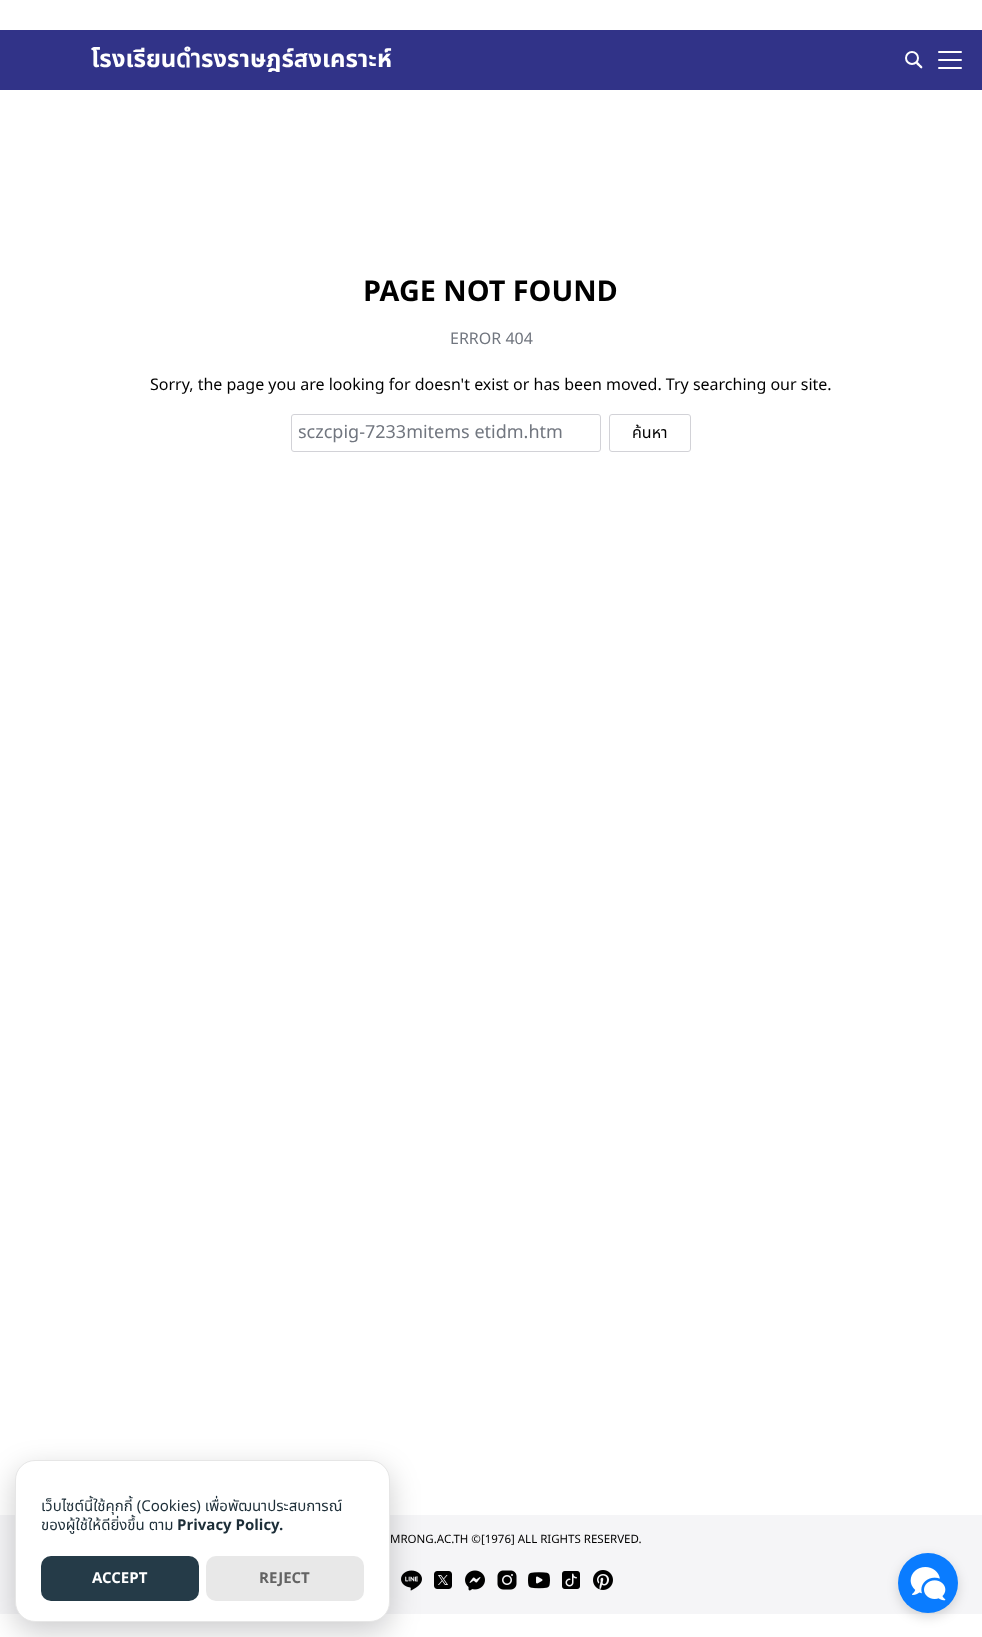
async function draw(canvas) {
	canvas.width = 982;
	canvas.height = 1637;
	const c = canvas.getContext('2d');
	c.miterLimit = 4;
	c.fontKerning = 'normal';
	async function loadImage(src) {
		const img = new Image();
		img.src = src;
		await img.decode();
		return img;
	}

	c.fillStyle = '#fff';
	c.fillRect(0, 0, 982, 1637);
	c.fillStyle = '#313388';
	c.fillRect(0, 30, 982, 60);
	c.font = 'bold 24px Noto Sans Thai';
	c.fillStyle = '#fff';
	c.fillText('โรงเรียนดำรงราษฎร์สงเคราะห์', 91, 67);
	c.beginPath();
	c.moveTo(916.5, 62.5);
	c.bezierCurveTo(917.5, 61, 919.5, 64, 920, 64.5);
	c.bezierCurveTo(920.5, 65, 923.5, 67, 922, 68);
	c.bezierCurveTo(921, 69.5, 919, 66.5, 918.5, 66);
	c.bezierCurveTo(918, 65.5, 915, 63.5, 916.5, 62.5);
	c.closePath();
	c.fill();
	c.beginPath();
	c.arc(912, 58, 6, 0, 2 * Math.PI);
	c.strokeStyle = '#fff';
	c.lineWidth = 2;
	c.stroke();
	c.beginPath();
	c.roundRect(938, 59, 24, 2, 1);
	c.fill();
	c.beginPath();
	c.roundRect(938, 51, 24, 2, 1);
	c.fill();
	c.beginPath();
	c.roundRect(938, 67, 24, 2, 1);
	c.fill();
	c.font = 'bold 28.75px Noto Sans Thai';
	c.fillStyle = '#000';
	c.fillText('PAGE NOT FOUND', 363, 301);
	c.font = '16px Noto Sans Thai';
	c.fillStyle = '#71767f';
	c.fillText('ERROR 404', 450, 344);
	c.fillStyle = '#000';
	c.fillText('Sorry, the page you are looking for doesn\'t exist or has been moved. Try searching our site.', 150, 390);
	c.beginPath();
	c.roundRect(291.5, 414.5, 309, 37, 2.5);
	c.strokeStyle = '#d2d2d7';
	c.lineWidth = 1;
	c.stroke();
	c.font = '18px Noto Sans Thai';
	c.fillStyle = '#71767f';
	c.fillText('sczcpig-7233mitems etidm.htm', 298, 438);
	c.beginPath();
	c.roundRect(609.5, 414.5, 81, 37, 2.5);
	c.stroke();
	c.font = '16px Noto Sans Thai';
	c.fillStyle = '#000';
	c.fillText('ค้นหา', 632, 438);
	c.fillStyle = '#f5f5f7';
	c.fillRect(0, 1515, 982, 99);
	c.font = '11.5px Noto Sans Thai';
	c.fillStyle = '#000';
	c.fillText('MRONG.AC.TH ©[1976] ALL RIGHTS RESERVED.', 390, 1543);
	c.drawImage(await loadImage('img1.png'), 401, 1570, 21, 21);
	c.drawImage(await loadImage('img2.png'), 434, 1571, 18, 18);
	c.drawImage(await loadImage('img3.png'), 465, 1570, 20, 21);
	c.drawImage(await loadImage('img4.png'), 497, 1570, 20, 20);
	c.drawImage(await loadImage('img5.png'), 528, 1572, 22, 17);
	c.drawImage(await loadImage('img6.png'), 562, 1571, 18, 18);
	c.drawImage(await loadImage('img7.png'), 593, 1570, 20, 20);
	c.fillStyle = '#00000026';
	c.filter = 'blur(6px)';
	c.beginPath();
	c.roundRect(898, 1557, 60, 60, 30);
	c.fill();
	c.filter = 'none';
	c.fillStyle = '#0a7cff';
	c.beginPath();
	c.arc(928, 1583, 30, 0, 2 * Math.PI);
	c.fill();
	c.drawImage(await loadImage('img8.png'), 910, 1567, 36, 34);
	c.fillStyle = '#02020333';
	c.filter = 'blur(15px)';
	c.beginPath();
	c.roundRect(15, 1470, 375, 162, 20);
	c.fill();
	c.filter = 'none';
	c.fillStyle = '#fff';
	c.beginPath();
	c.roundRect(15.5, 1460.5, 374, 161, 19.5);
	c.fill();
	c.strokeStyle = '#e6e6e6';
	c.stroke();
	c.font = '15px Noto Sans Thai';
	c.fillStyle = '#1d2e38';
	c.fillText('เว็บไซต์นี้ใช้คุกกี้ (Cookies) เพื่อพัฒนาประสบการณ์', 41, 1511);
	c.fillText('ของผู้ใช้ให้ดียิ่งขึ้น ตาม', 41, 1530);
	c.font = 'bold 15px Noto Sans Thai';
	c.fillText('Privacy Policy.', 177, 1530);
	c.fillStyle = '#253b48';
	c.beginPath();
	c.roundRect(41, 1556, 158, 45, 10);
	c.fill();
	c.fillStyle = '#fff';
	c.fillText('ACCEPT', 92, 1583);
	c.fillStyle = '#e8e8e8';
	c.beginPath();
	c.roundRect(206, 1556, 158, 45, 10);
	c.fill();
	c.fillStyle = '#636363';
	c.fillText('REJECT', 259, 1583);
}

draw(document.querySelector('canvas'));
